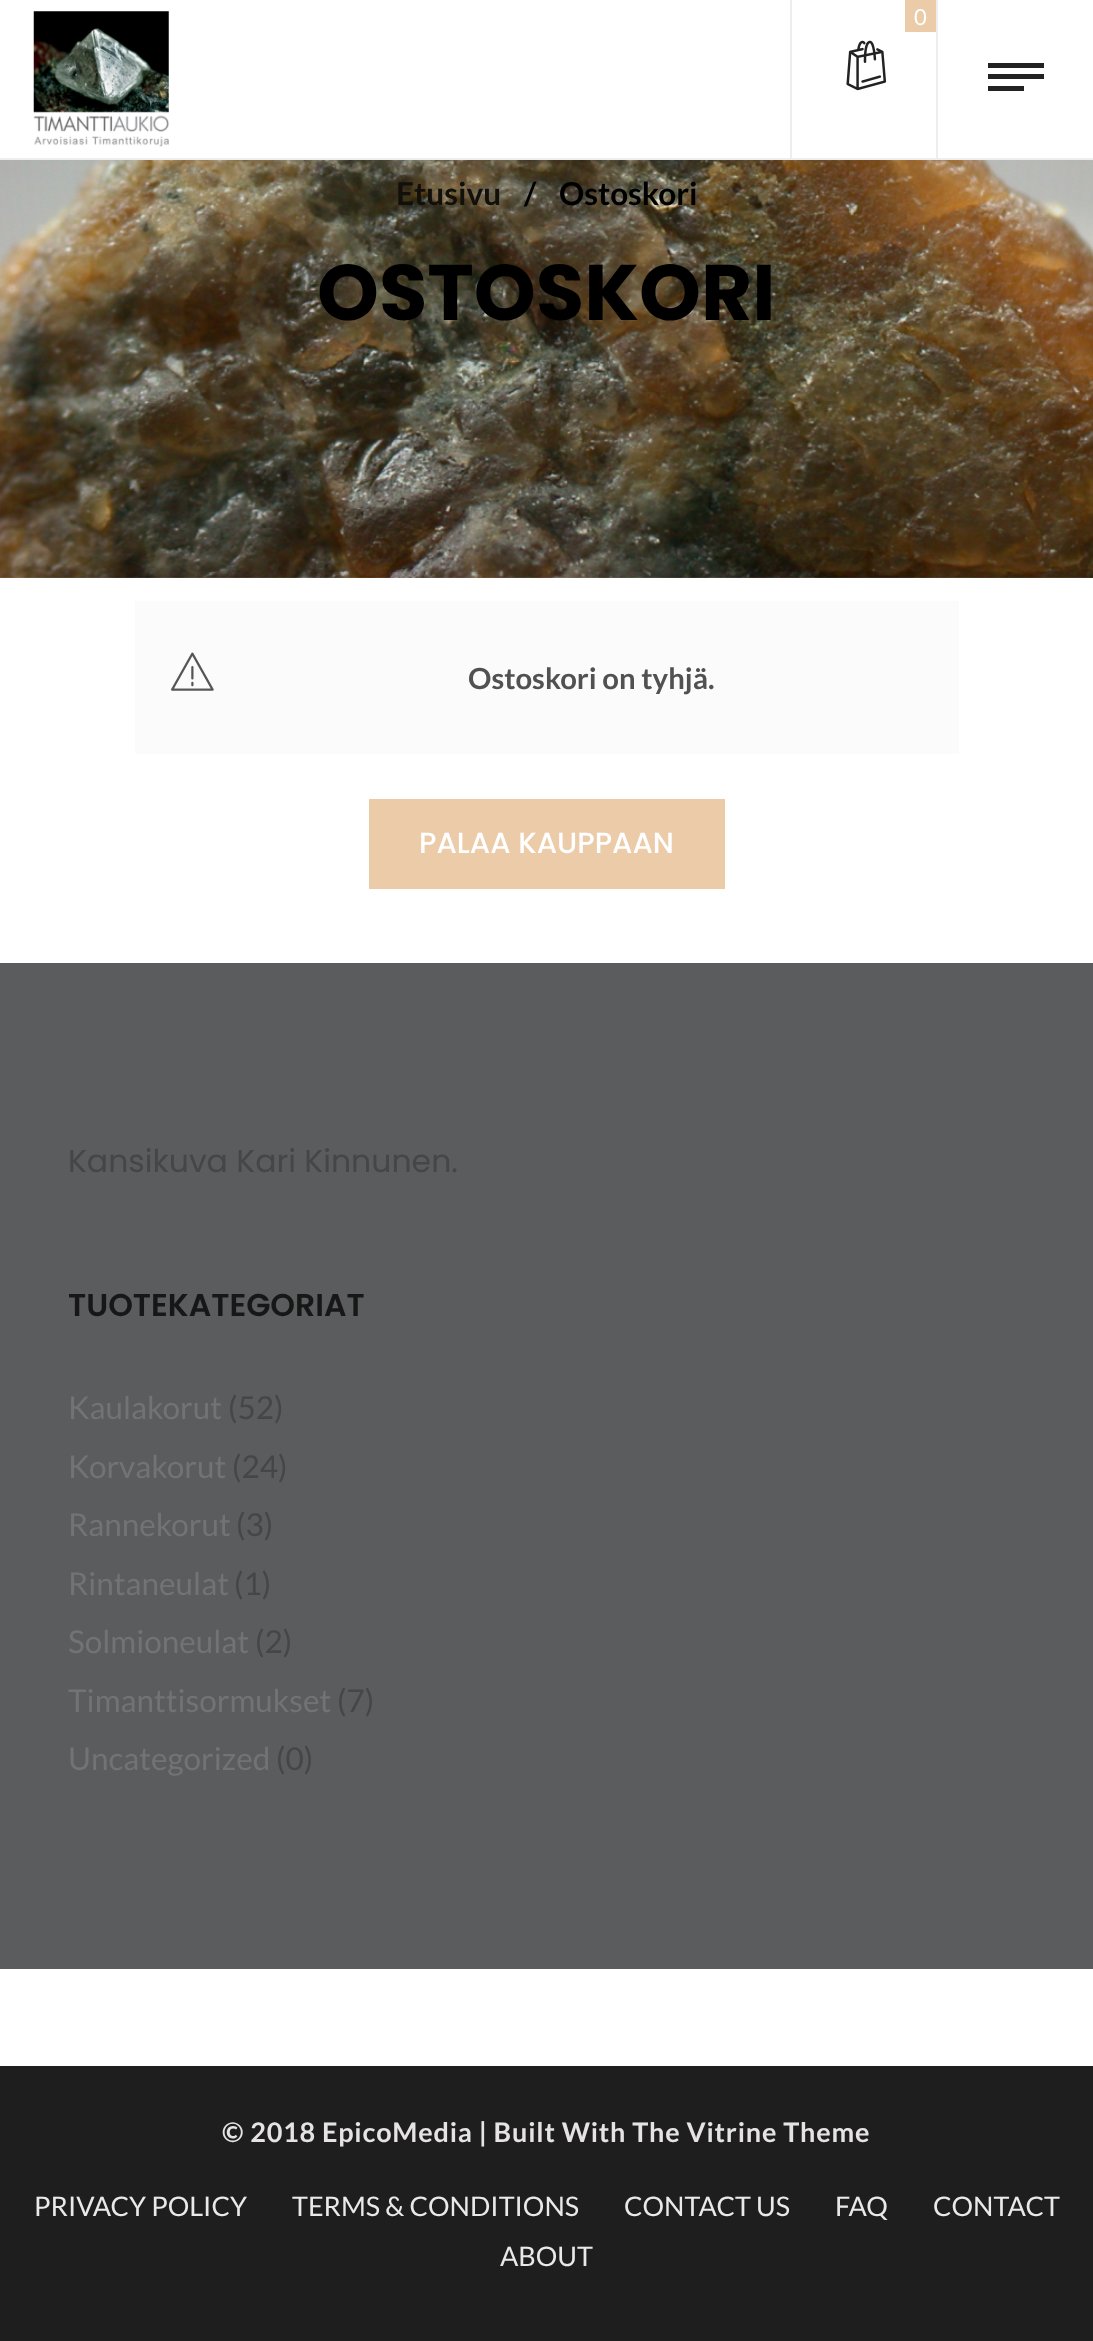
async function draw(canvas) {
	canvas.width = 1093;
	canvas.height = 2341;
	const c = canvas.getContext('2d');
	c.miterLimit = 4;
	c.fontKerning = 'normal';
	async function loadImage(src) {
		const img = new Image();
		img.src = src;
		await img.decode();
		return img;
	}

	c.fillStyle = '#fff';
	c.fillRect(0, 0, 1093, 2341);
	c.fillStyle = '#eee';
	c.fillRect(0, 158, 1093, 2);
	c.drawImage(await loadImage('img1.png'), 33, 11, 136, 136);
	c.fillRect(790, 0, 2, 158);
	c.fillStyle = '#eccba9';
	c.fillRect(905, 0, 31, 32);
	c.font = '22px Lato';
	c.fillStyle = '#fff';
	c.fillText('0', 914, 25);
	c.drawImage(await loadImage('img2.png'), 846, 40, 41, 51);
	for (const [x, y, w, h, color] of [
		[936, 0, 2, 158, '#eee'],
		[988, 74, 56, 5, '#222'],
		[988, 63, 56, 5, '#222'],
		[988, 86, 36, 5, '#222'],
	]) {
		c.fillStyle = color;
		c.fillRect(x, y, w, h);
	}
	c.drawImage(await loadImage('img3.png'), 0, 160, 1093, 418);
	c.font = 'bold 31.5px Lato';
	c.fillStyle = '#12100b';
	c.fillText('Etusivu', 396, 205);
	c.fillStyle = '#000';
	c.fillText('/', 524, 205);
	c.fillText('Ostoskori', 559, 205);
	c.font = 'bold 78.75px Poppins';
	c.fillText('OSTOSKORI', 317, 320);
	c.fillStyle = '#fbfbfb';
	c.fillRect(135, 601, 824, 153);
	c.drawImage(await loadImage('img4.png'), 171, 652, 43, 39);
	c.font = 'bold 29.25px Lato';
	c.fillStyle = '#515151';
	c.fillText('Ostoskori on tyhjä.', 468, 689);
	c.fillStyle = '#eccba9';
	c.fillRect(369, 799, 356, 90);
	c.font = '500 29.25px Poppins';
	c.fillStyle = '#fff';
	c.fillText('PALAA KAUPPAAN', 419, 853);
	c.fillStyle = '#5b5c5e';
	c.fillRect(0, 963, 1093, 1006);
	c.font = '31.5px Poppins';
	c.fillStyle = '#464646';
	c.fillText('Kansikuva Kari Kinnunen.', 68, 1172);
	c.font = '600 31.5px Poppins';
	c.fillStyle = '#171717';
	c.fillText('TUOTEKATEGORIAT', 68, 1316);
	c.font = '31.5px Lato';
	c.fillStyle = '#737373';
	c.fillText('Kaulakorut', 68, 1419);
	c.fillStyle = '#464646';
	c.fillText('(52)', 228, 1419);
	c.fillStyle = '#737373';
	c.fillText('Korvakorut', 68, 1478);
	c.fillStyle = '#464646';
	c.fillText('(24)', 232, 1478);
	c.fillStyle = '#737373';
	c.fillText('Rannekorut', 68, 1536);
	c.fillStyle = '#464646';
	c.fillText('(3)', 236, 1536);
	c.fillStyle = '#737373';
	c.fillText('Rintaneulat', 68, 1595);
	c.fillStyle = '#464646';
	c.fillText('(1)', 234, 1595);
	c.fillStyle = '#737373';
	c.fillText('Solmioneulat', 68, 1653);
	c.fillStyle = '#464646';
	c.fillText('(2)', 255, 1653);
	c.fillStyle = '#737373';
	c.fillText('Timanttisormukset', 68, 1712);
	c.fillStyle = '#464646';
	c.fillText('(7)', 337, 1712);
	c.fillStyle = '#737373';
	c.fillText('Uncategorized', 68, 1770);
	c.fillStyle = '#464646';
	c.fillText('(0)', 276, 1770);
	c.fillStyle = '#1e1e1e';
	c.fillRect(0, 2066, 1093, 275);
	c.letterSpacing = '0.8px';
	c.font = 'bold 27px Lato';
	c.fillStyle = '#e5e3e3';
	c.fillText('© 2018 EpicoMedia | Built With The Vitrine Theme', 222, 2142);
	c.letterSpacing = '0px';
	c.font = '27px Lato';
	c.fillStyle = '#e9e9e9';
	for (const [text, x, y] of [
		['PRIVACY POLICY', 34, 2216],
		['TERMS & CONDITIONS', 292, 2216],
		['CONTACT US', 624, 2216],
		['FAQ', 835, 2216],
		['CONTACT', 933, 2216],
		['ABOUT', 500, 2266],
	]) {
		c.fillText(text, x, y);
	}
}

draw(document.querySelector('canvas'));
